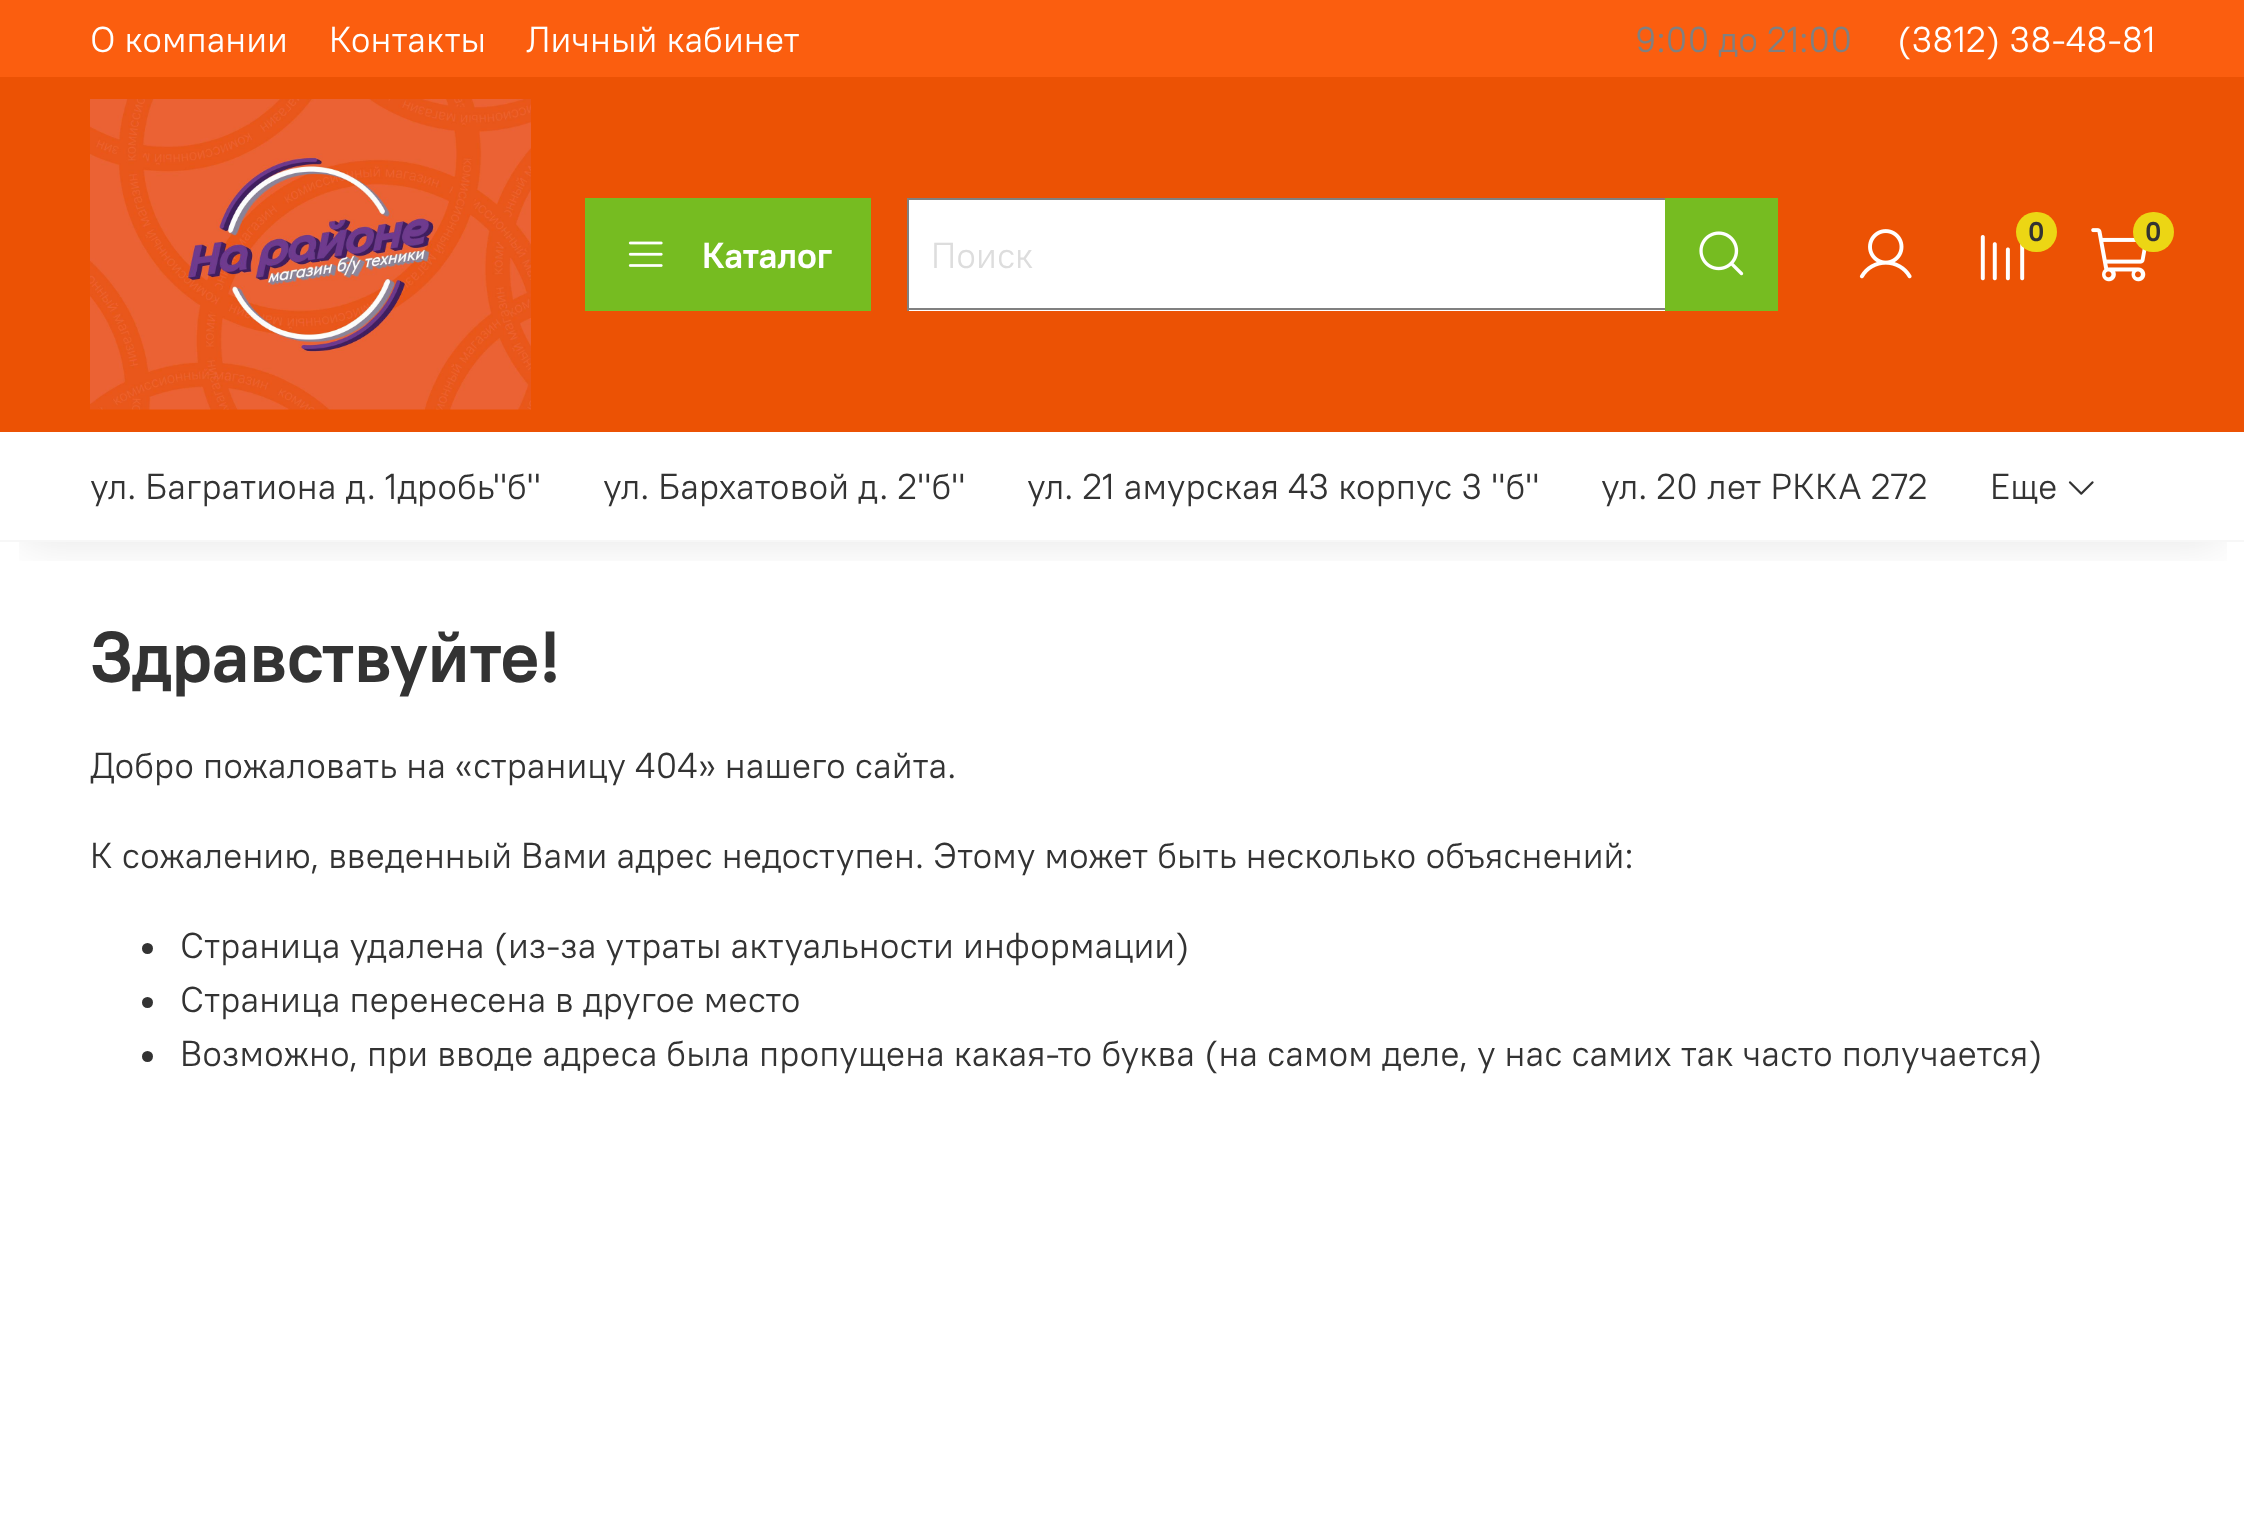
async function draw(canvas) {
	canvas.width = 2244;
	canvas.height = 1539;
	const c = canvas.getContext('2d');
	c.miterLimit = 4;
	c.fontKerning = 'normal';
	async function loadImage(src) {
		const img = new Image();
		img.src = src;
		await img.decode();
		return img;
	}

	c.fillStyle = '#fff';
	c.fillRect(0, 0, 2244, 1539);
	c.fillStyle = '#fb5e0f';
	c.fillRect(0, 0, 2244, 77);
	c.font = '36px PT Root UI';
	c.fillStyle = '#fff';
	for (const [text, x, y] of [
		['О компании', 90, 52],
		['Контакты', 329, 52],
		['Личный кабинет', 526, 52],
	]) {
		c.fillText(text, x, y);
	}
	c.fillStyle = '#808080';
	c.fillText('9:00 до 21:00', 1635, 52);
	c.fillStyle = '#fff';
	c.fillText('(3812) 38-48-81', 1897, 52);
	c.fillStyle = '#ec5204';
	c.fillRect(0, 77, 2244, 355);
	c.drawImage(await loadImage('img1.png'), 90, 99, 441, 311);
	c.drawImage(await loadImage('img2.png'), 1859, 229, 53, 50);
	c.drawImage(await loadImage('img3.png'), 1980, 235, 45, 46);
	c.fillStyle = '#ecd614';
	c.beginPath();
	c.roundRect(2016, 212, 41, 40, 20);
	c.fill();
	c.font = 'bold 27px PT Root UI';
	c.fillStyle = '#333';
	c.fillText('0', 2028, 241);
	c.drawImage(await loadImage('img4.png'), 2091, 228, 56, 54);
	c.fillStyle = '#ecd614';
	c.beginPath();
	c.roundRect(2133, 212, 41, 40, 20);
	c.fill();
	c.fillStyle = '#333';
	c.fillText('0', 2145, 241);
	c.fillStyle = '#76bc21';
	c.fillRect(585, 198, 286, 113);
	c.drawImage(await loadImage('img5.png'), 628, 241, 35, 26);
	c.font = 'bold 36px PT Root UI';
	c.fillStyle = '#fff';
	c.fillText('Каталог', 702, 268);
	for (const [x, y, w, h, color] of [
		[909, 200, 756, 111, '#fff'],
		[907, 198, 758, 2, '#808080'],
		[907, 308, 758, 2, '#808080'],
		[907, 198, 2, 113, '#808080'],
	]) {
		c.fillStyle = color;
		c.fillRect(x, y, w, h);
	}
	c.font = '36px PT Root UI';
	c.fillStyle = '#ddd';
	c.fillText('Поиск', 931, 268);
	c.fillStyle = '#76bc21';
	c.fillRect(1665, 198, 113, 113);
	c.drawImage(await loadImage('img6.png'), 1699, 231, 45, 45);
	c.save();
	c.beginPath();
	c.rect(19, 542, 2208, 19);
	c.clip();
	c.fillStyle = '#0000001a';
	c.filter = 'blur(22.5px)';
	c.beginPath();
	c.rect(23, 477, 2200, 65);
	c.fill();
	c.filter = 'none';
	c.restore();
	c.fillStyle = '#f7f7f7';
	c.fillRect(0, 540, 2244, 2);
	c.fillStyle = '#333';
	for (const [text, x, y] of [
		['ул. Багратиона д. 1дробь"б"', 90, 499],
		['ул. Бархатовой д. 2"б"', 603, 499],
		['ул. 21 амурская 43 корпус 3 "б"', 1027, 499],
		['ул. 20 лет РККА 272', 1601, 499],
		['Еще', 1990, 499],
	]) {
		c.fillText(text, x, y);
	}
	c.drawImage(await loadImage('img7.png'), 2068, 481, 26, 14);
	c.font = 'bold 72px PT Root UI';
	c.fillText('Здравствуйте!', 90, 682);
	c.font = '36px PT Root UI';
	c.fillText('Добро пожаловать на «страницу 404» нашего сайта.', 90, 778);
	c.fillText('К сожалению, введенный Вами адрес недоступен. Этому может быть несколько объяснений:', 90, 868);
	c.beginPath();
	c.arc(147.5, 948.5, 5.5, 0, 2 * Math.PI);
	c.fill();
	c.fillText('Страница удалена (из-за утраты актуальности информации)', 180, 958);
	c.beginPath();
	c.arc(147.5, 1002.5, 5.5, 0, 2 * Math.PI);
	c.fill();
	c.fillText('Страница перенесена в другое место', 180, 1012);
	c.beginPath();
	c.arc(147.5, 1056.5, 5.5, 0, 2 * Math.PI);
	c.fill();
	c.fillText('Возможно, при вводе адреса была пропущена какая-то буква (на самом деле, у нас самих так часто получается)', 180, 1066);
}

draw(document.querySelector('canvas'));
